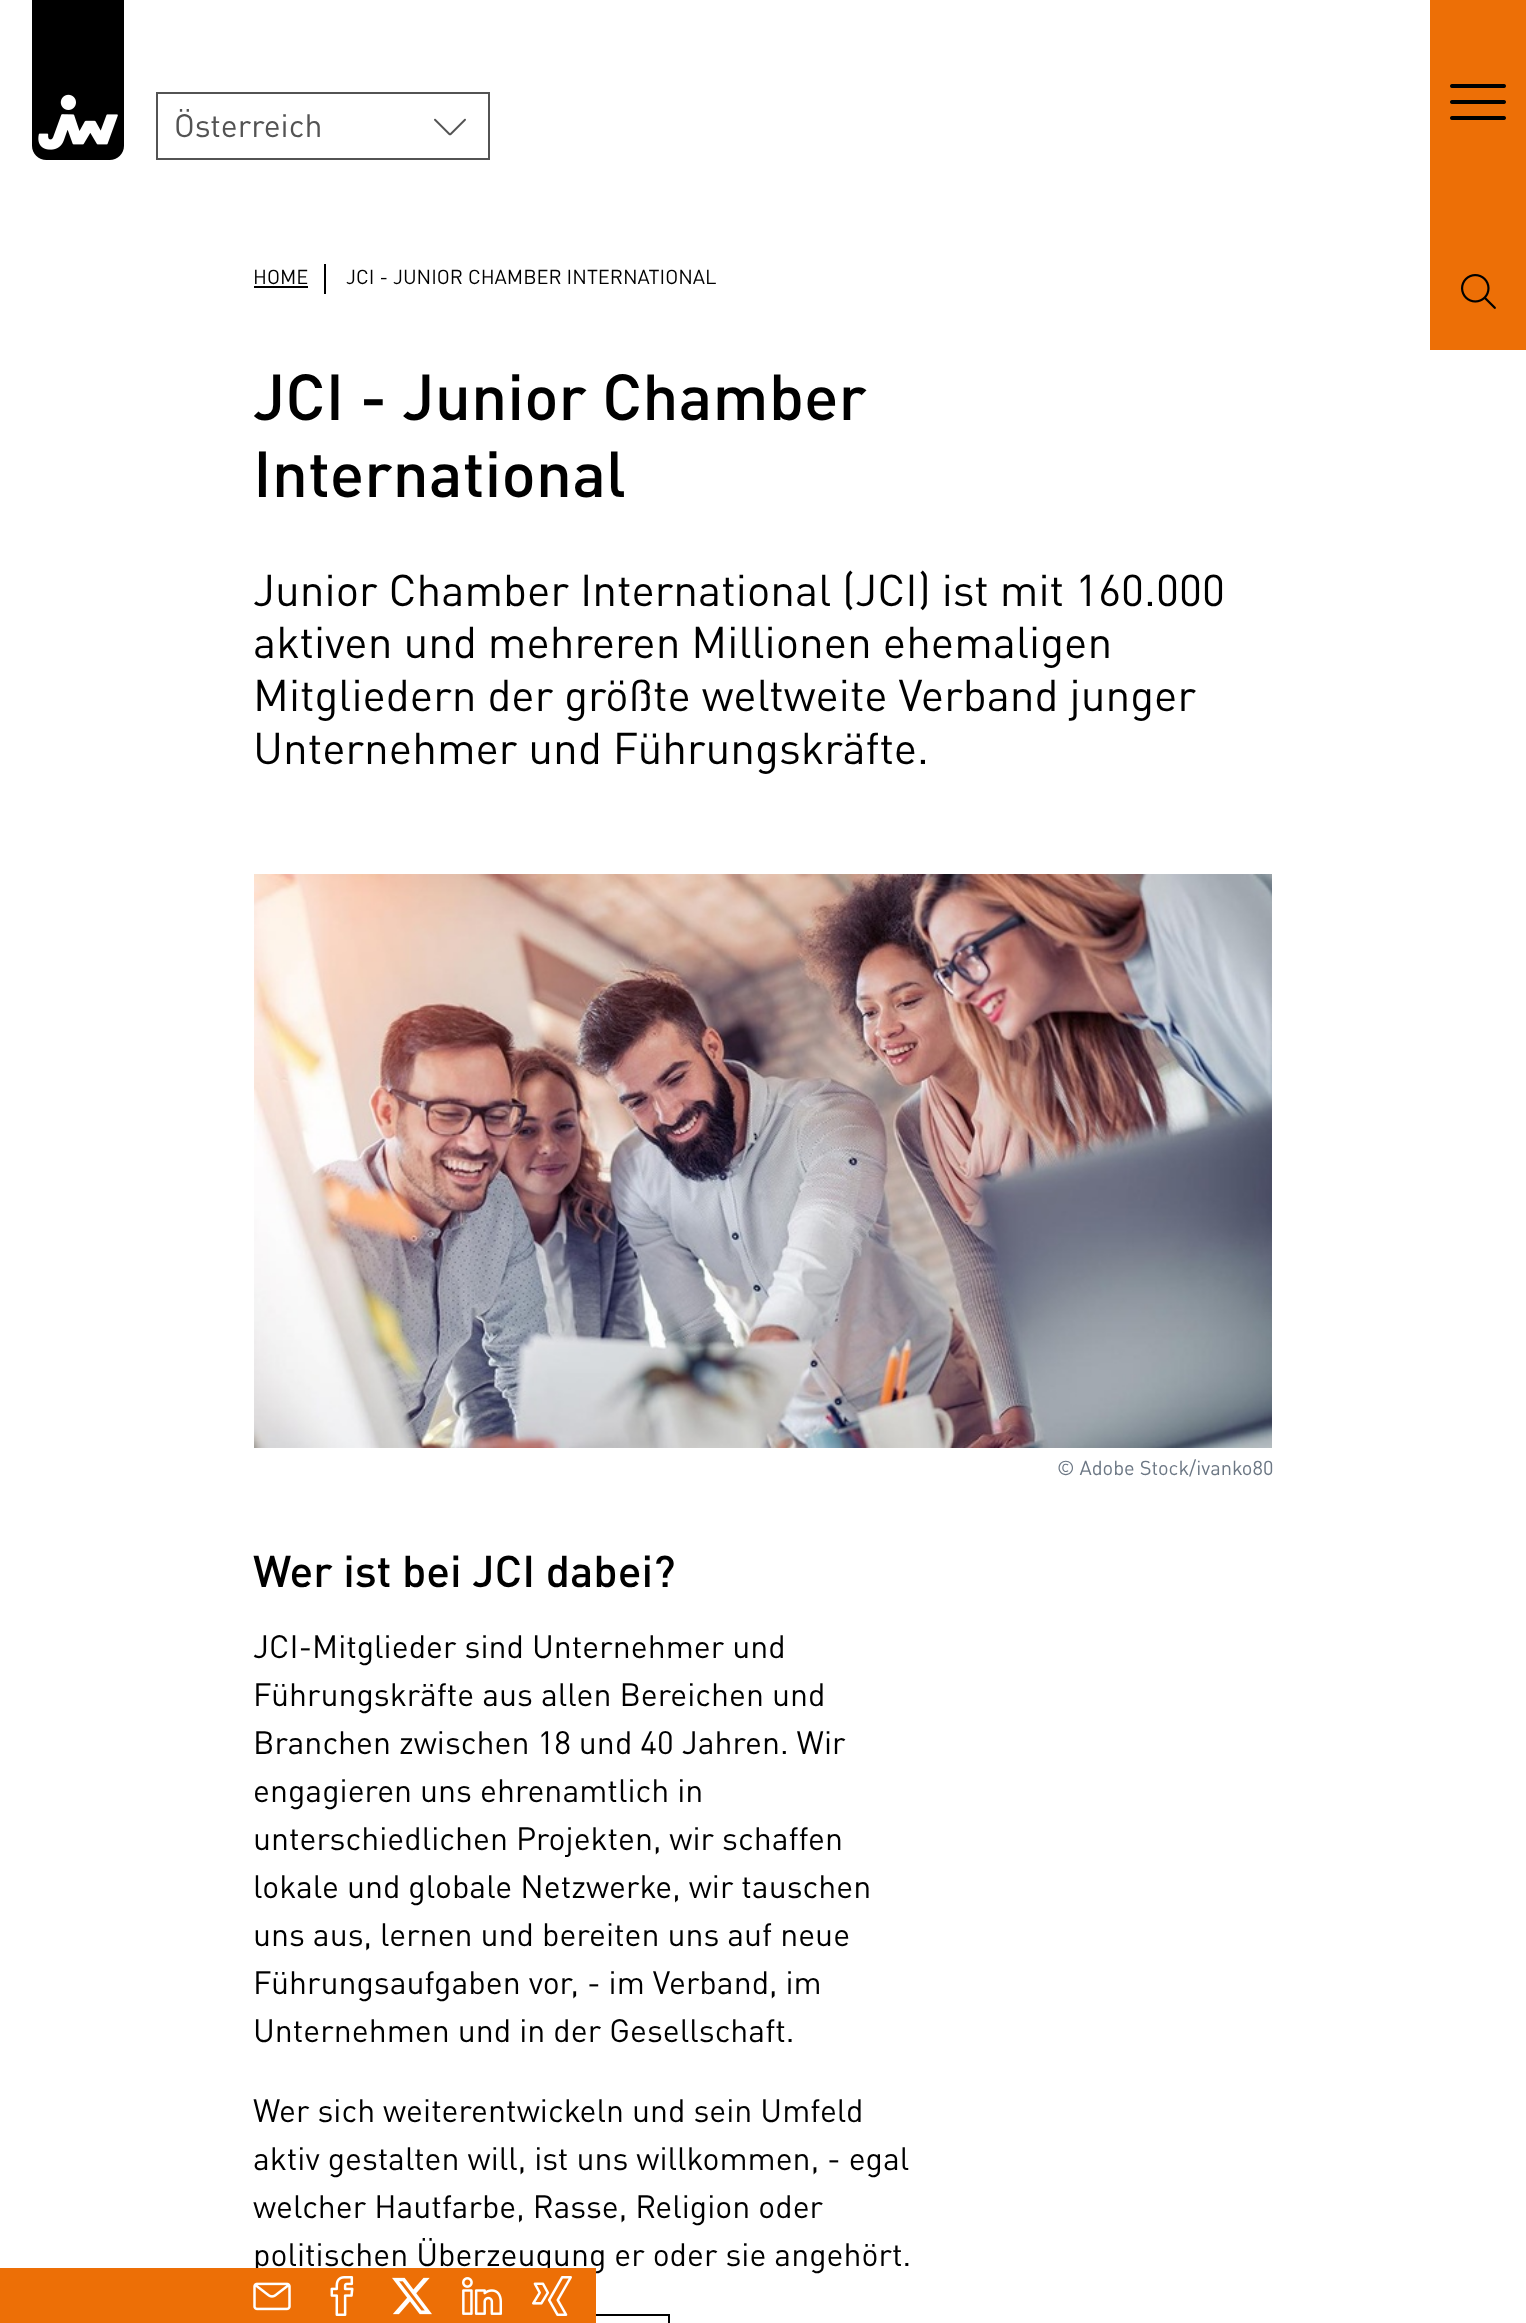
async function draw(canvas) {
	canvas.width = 1526;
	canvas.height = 2323;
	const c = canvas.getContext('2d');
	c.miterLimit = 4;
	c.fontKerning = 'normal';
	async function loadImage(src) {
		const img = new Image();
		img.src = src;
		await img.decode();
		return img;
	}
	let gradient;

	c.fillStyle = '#fff';
	c.fillRect(0, 0, 1526, 2323);
	c.drawImage(await loadImage('img1.png'), 32, 0, 92, 160);
	c.strokeStyle = '#535353';
	c.lineWidth = 2;
	c.strokeRect(157, 93, 332, 66);
	c.font = '32px DIN';
	c.fillStyle = '#535353';
	c.fillText('Österreich', 174, 137);
	c.drawImage(await loadImage('img2.png'), 434, 118, 32, 18);
	c.fillStyle = '#ed6f06';
	c.fillRect(1430, 0, 96, 350);
	c.drawImage(await loadImage('img3.png'), 1450, 84, 56, 36);
	c.drawImage(await loadImage('img4.png'), 1461, 274, 35, 35);
	c.font = '20px DIN';
	c.fillStyle = '#000';
	c.fillText('HOME', 253, 284);
	c.fillRect(254, 286, 54, 2);
	c.fillRect(324, 264, 2, 30);
	c.fillText('JCI - JUNIOR CHAMBER INTERNATIONAL', 346, 284);
	c.font = '500 64px DIN';
	c.fillText('JCI - Junior Chamber', 253, 420);
	c.fillText('International', 253, 497);
	c.font = '44px DIN';
	for (const [text, x, y] of [
		['Junior Chamber International (JCI) ist mit 160.000', 253, 606],
		['aktiven und mehreren Millionen ehemaligen', 253, 658],
		['Mitgliedern der größte weltweite Verband junger', 253, 711],
		['Unternehmer und Führungskräfte.', 253, 764],
	]) {
		c.fillText(text, x, y);
	}
	c.drawImage(await loadImage('img5.png'), 254, 874, 1018, 574);
	c.font = '20px DIN';
	c.fillStyle = '#6c7784';
	c.fillText('© Adobe Stock/ivanko80', 1057, 1475);
	c.font = '500 44px DIN';
	c.fillStyle = '#000';
	c.fillText('Wer ist bei JCI dabei?', 253, 1587);
	c.font = '32px DIN';
	for (const [text, x, y] of [
		['JCI-Mitglieder sind Unternehmer und', 253, 1658],
		['Führungskräfte aus allen Bereichen und', 253, 1706],
		['Branchen zwischen 18 und 40 Jahren. Wir', 253, 1754],
		['engagieren uns ehrenamtlich in', 253, 1802],
		['unterschiedlichen Projekten, wir schaffen', 253, 1850],
		['lokale und globale Netzwerke, wir tauschen', 253, 1898],
		['uns aus, lernen und bereiten uns auf neue', 253, 1946],
		['Führungsaufgaben vor, - im Verband, im', 253, 1994],
		['Unternehmen und in der Gesellschaft.', 253, 2042],
		['Wer sich weiterentwickeln und sein Umfeld', 253, 2122],
		['aktiv gestalten will, ist uns willkommen, - egal', 253, 2170],
		['welcher Hautfarbe, Rasse, Religion oder', 253, 2218],
		['politischen Überzeugung er oder sie angehört.', 253, 2266],
	]) {
		c.fillText(text, x, y);
	}
	c.strokeStyle = '#000';
	c.strokeRect(255, 2315, 414, 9);
	gradient = c.createLinearGradient(0, 2296, 1526, 2296);
	gradient.addColorStop(0, '#ed6f06');
	gradient.addColorStop(0.24, '#ed6f06');
	gradient.addColorStop(0.24, '#ed6f0600');
	gradient.addColorStop(1, '#00000000');
	c.fillStyle = gradient;
	c.fillRect(0, 2268, 314, 55);
	c.fillStyle = '#ed6f06';
	c.fillRect(314, 2268, 282, 55);
	c.drawImage(await loadImage('img6.png'), 330, 2276, 24, 40);
	c.drawImage(await loadImage('img7.png'), 253, 2282, 38, 29);
	c.drawImage(await loadImage('img8.png'), 392, 2277, 40, 38);
	c.drawImage(await loadImage('img9.png'), 462, 2277, 40, 38);
	c.drawImage(await loadImage('img10.png'), 532, 2276, 40, 40);
}

draw(document.querySelector('canvas'));
